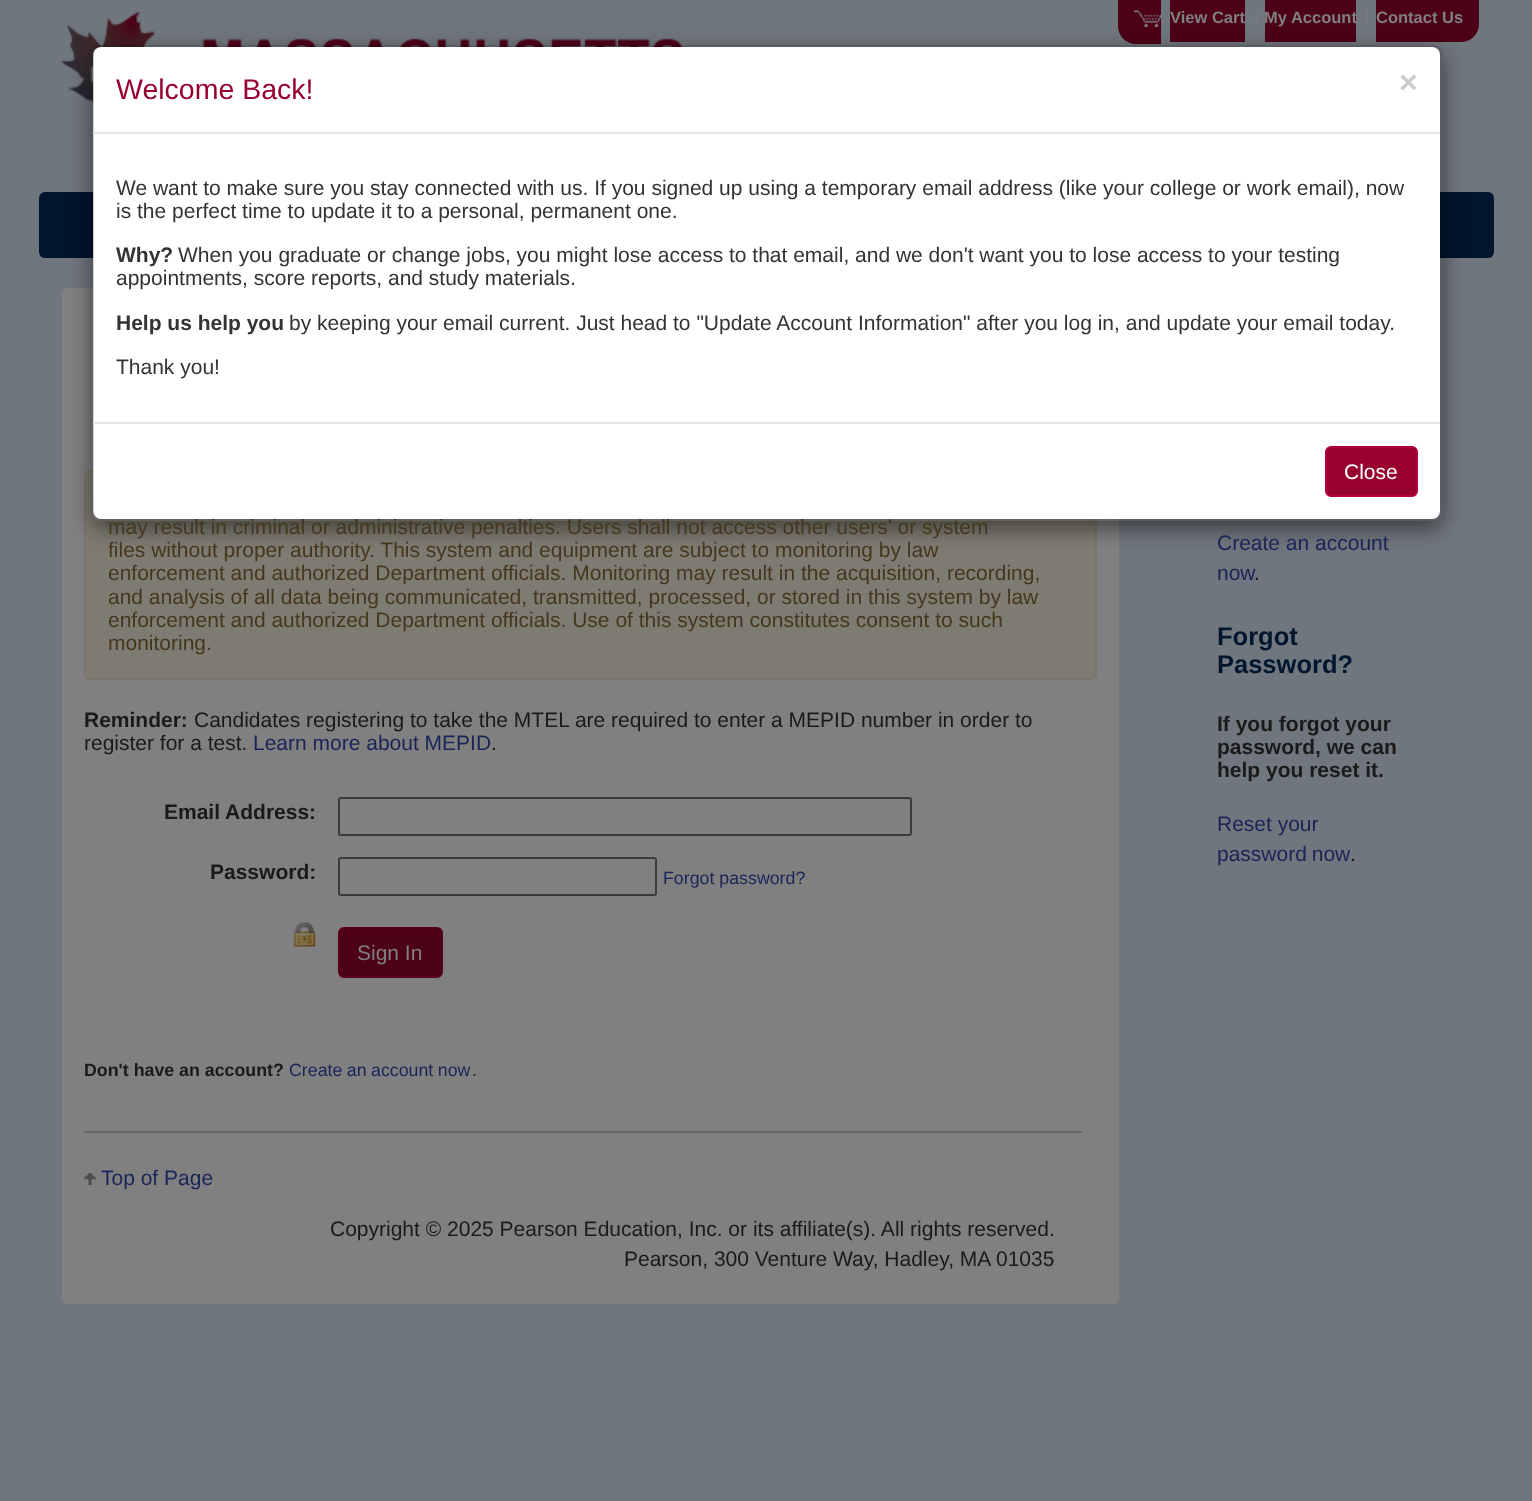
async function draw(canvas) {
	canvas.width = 1532;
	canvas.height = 1501;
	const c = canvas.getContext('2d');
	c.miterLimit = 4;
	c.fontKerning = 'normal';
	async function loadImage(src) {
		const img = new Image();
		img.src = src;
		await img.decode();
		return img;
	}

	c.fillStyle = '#70767d';
	c.fillRect(0, 0, 1532, 1501);
	c.drawImage(await loadImage('img1.png'), 61, 11, 622, 94);
	c.fillStyle = '#4c0117';
	c.beginPath();
	c.moveTo(1118, -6);
	c.lineTo(1161, -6);
	c.lineTo(1161, 44);
	c.lineTo(1136, 44);
	c.bezierCurveTo(1126, 44, 1118, 36, 1118, 26);
	c.closePath();
	c.fill();
	c.drawImage(await loadImage('img2.png'), 1134, 10, 27, 17);
	c.fillRect(1170, 0, 75, 42);
	c.font = 'bold 16.5px Liberation Sans';
	c.fillStyle = '#808080';
	c.fillText('View Cart', 1170, 23);
	c.drawImage(await loadImage('img3.png'), 1255, 10, 2, 14);
	c.fillStyle = '#4c0117';
	c.fillRect(1265, 0, 91, 42);
	c.fillStyle = '#808080';
	c.fillText('My Account', 1264, 23);
	c.drawImage(await loadImage('img3.png'), 1366, 10, 2, 14);
	c.fillStyle = '#4c0117';
	c.beginPath();
	c.moveTo(1376, -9);
	c.lineTo(1479, -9);
	c.lineTo(1479, 24);
	c.bezierCurveTo(1479, 34, 1471, 42, 1461, 42);
	c.lineTo(1376, 42);
	c.closePath();
	c.fill();
	c.fillStyle = '#808080';
	c.fillText('Contact Us', 1376, 23);
	c.fillStyle = '#00152e';
	c.beginPath();
	c.roundRect(39, 192, 1455, 66, 6);
	c.fill();
	c.fillStyle = '#808080';
	c.beginPath();
	c.roundRect(62, 288, 1057, 1016, 5);
	c.fill();
	c.fillStyle = '#7e7c72';
	c.beginPath();
	c.roundRect(85, 471, 1011, 208, 5);
	c.fill();
	c.strokeStyle = '#7d7666';
	c.lineWidth = 2;
	c.stroke();
	c.save();
	c.beginPath();
	c.moveTo(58, 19);
	c.lineTo(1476, 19);
	c.lineTo(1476, 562);
	c.lineTo(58, 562);
	c.closePath();
	c.moveTo(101, 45);
	c.lineTo(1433, 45);
	c.bezierCurveTo(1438, 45, 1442, 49, 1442, 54);
	c.lineTo(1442, 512);
	c.bezierCurveTo(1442, 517, 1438, 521, 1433, 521);
	c.lineTo(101, 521);
	c.bezierCurveTo(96, 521, 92, 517, 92, 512);
	c.lineTo(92, 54);
	c.bezierCurveTo(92, 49, 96, 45, 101, 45);
	c.closePath();
	c.clip('evenodd');
	c.fillStyle = '#00000080';
	c.filter = 'blur(11px)';
	c.beginPath();
	c.roundRect(92, 53, 1350, 475, 9);
	c.fill();
	c.filter = 'none';
	c.restore();
	c.font = '21px Liberation Sans';
	c.fillStyle = '#45371e';
	c.fillText('may result in criminal or administrative penalties. Users shall not access other users\' or system', 108, 534);
	c.fillStyle = '#fff';
	c.beginPath();
	c.roundRect(93, 47, 1347, 472, 8);
	c.fill();
	c.beginPath();
	c.roundRect(93, 46, 1348, 474, 8);
	c.strokeStyle = '#00000033';
	c.stroke();
	c.fillStyle = '#e5e5e5';
	c.fillRect(93, 132, 1347, 2);
	c.font = '28.5px Liberation Sans';
	c.fillStyle = '#98012e';
	c.fillText('Welcome Back!', 116, 99);
	c.font = 'bold 32px Liberation Sans';
	c.fillStyle = '#ccc';
	c.fillText('×', 1399, 93);
	c.font = '21px Liberation Sans';
	c.fillStyle = '#333';
	c.fillText('We want to make sure you stay connected with us. If you signed up using a temporary email address (like your college or work email), now', 116, 195);
	c.fillText('is the perfect time to update it to a personal, permanent one.', 116, 218);
	c.font = 'bold 21px Liberation Sans';
	c.fillText('Why?', 116, 262);
	c.font = '21px Liberation Sans';
	c.fillText('When you graduate or change jobs, you might lose access to that email, and we don\'t want you to lose access to your testing', 178, 262);
	c.fillText('appointments, score reports, and study materials.', 116, 285);
	c.font = 'bold 21px Liberation Sans';
	c.fillText('Help us help you', 116, 330);
	c.font = '21px Liberation Sans';
	c.fillText('by keeping your email current. Just head to "Update Account Information" after you log in, and update your email today.', 289, 330);
	c.fillText('Thank you!', 116, 374);
	c.fillStyle = '#e5e5e5';
	c.fillRect(93, 422, 1347, 2);
	c.fillStyle = '#98012e';
	c.beginPath();
	c.roundRect(1326, 447, 91, 49, 5);
	c.fill();
	c.strokeStyle = '#b10136';
	c.stroke();
	c.fillStyle = '#fff';
	c.fillText('Close', 1344, 479);
	c.fillStyle = '#45371e';
	for (const [text, x, y] of [
		['files without proper authority. This system and equipment are subject to monitoring by law', 108, 557],
		['enforcement and authorized Department officials. Monitoring may result in the acquisition, recording,', 108, 580],
		['and analysis of all data being communicated, transmitted, processed, or stored in this system by law', 108, 604],
		['enforcement and authorized Department officials. Use of this system constitutes consent to such', 108, 627],
		['monitoring.', 108, 650],
	]) {
		c.fillText(text, x, y);
	}
	c.font = 'bold 21px Liberation Sans';
	c.fillStyle = '#1a1a1a';
	c.fillText('Reminder:', 84, 727);
	c.font = '21px Liberation Sans';
	c.fillText('Candidates registering to take the MTEL are required to enter a MEPID number in order to', 194, 727);
	c.fillText('register for a test.', 84, 750);
	c.fillStyle = '#192557';
	c.fillText('Learn more about MEPID', 253, 750);
	c.fillStyle = '#1a1a1a';
	c.fillText('.', 491, 750);
	c.font = 'bold 21px Liberation Sans';
	c.fillText('Email Address:', 164, 819);
	c.beginPath();
	c.roundRect(339, 798, 572, 37, 2);
	c.strokeStyle = '#3b3b3b';
	c.stroke();
	c.fillText('Password:', 210, 879);
	c.beginPath();
	c.roundRect(339, 858, 317, 37, 2);
	c.stroke();
	c.font = '17.8px Liberation Sans';
	c.fillStyle = '#192557';
	c.fillText('Forgot password?', 663, 884);
	c.drawImage(await loadImage('img4.png'), 293, 922, 23, 25);
	c.fillStyle = '#4c0117';
	c.beginPath();
	c.roundRect(339, 928, 103, 49, 5);
	c.fill();
	c.strokeStyle = '#59011b';
	c.stroke();
	c.font = '21px Liberation Sans';
	c.fillStyle = '#808080';
	c.fillText('Sign In', 357, 960);
	c.font = 'bold 17.8px Liberation Sans';
	c.fillStyle = '#1a1a1a';
	c.fillText('Don\'t have an account?', 84, 1076);
	c.wordSpacing = '-0.5px';
	c.font = '17.8px Liberation Sans';
	c.fillStyle = '#192557';
	c.fillText('Create an account now', 289, 1076);
	c.wordSpacing = '0px';
	c.fillStyle = '#1a1a1a';
	c.fillText('.', 472, 1076);
	c.fillStyle = '#686868';
	c.fillRect(84, 1131, 998, 2);
	c.drawImage(await loadImage('img5.png'), 84, 1173, 12, 12);
	c.font = '21px Liberation Sans';
	c.fillStyle = '#192557';
	c.fillText('Top of Page', 101, 1185);
	c.fillStyle = '#1a1a1a';
	c.fillText('Copyright © 2025 Pearson Education, Inc. or its affiliate(s). All rights reserved.', 330, 1236);
	c.fillText('Pearson, 300 Venture Way, Hadley, MA 01035', 624, 1266);
	c.fillStyle = '#192557';
	c.fillText('Create an account', 1217, 550);
	c.fillText('now', 1217, 580);
	c.fillStyle = '#1a1a1a';
	c.fillText('.', 1254, 580);
	c.font = 'bold 25.5px Liberation Sans';
	c.fillStyle = '#00152e';
	c.fillText('Forgot', 1217, 645);
	c.fillText('Password?', 1217, 673);
	c.font = 'bold 21px Liberation Sans';
	c.fillStyle = '#1a1a1a';
	for (const [text, x, y] of [
		['If you forgot your', 1217, 731],
		['password, we can', 1217, 754],
		['help you reset it.', 1217, 777],
	]) {
		c.fillText(text, x, y);
	}
	c.font = '21px Liberation Sans';
	c.fillStyle = '#192557';
	c.fillText('Reset your', 1217, 831);
	c.wordSpacing = '-1px';
	c.fillText('password now', 1217, 861);
	c.wordSpacing = '0px';
	c.fillStyle = '#1a1a1a';
	c.fillText('.', 1350, 861);
}

draw(document.querySelector('canvas'));
